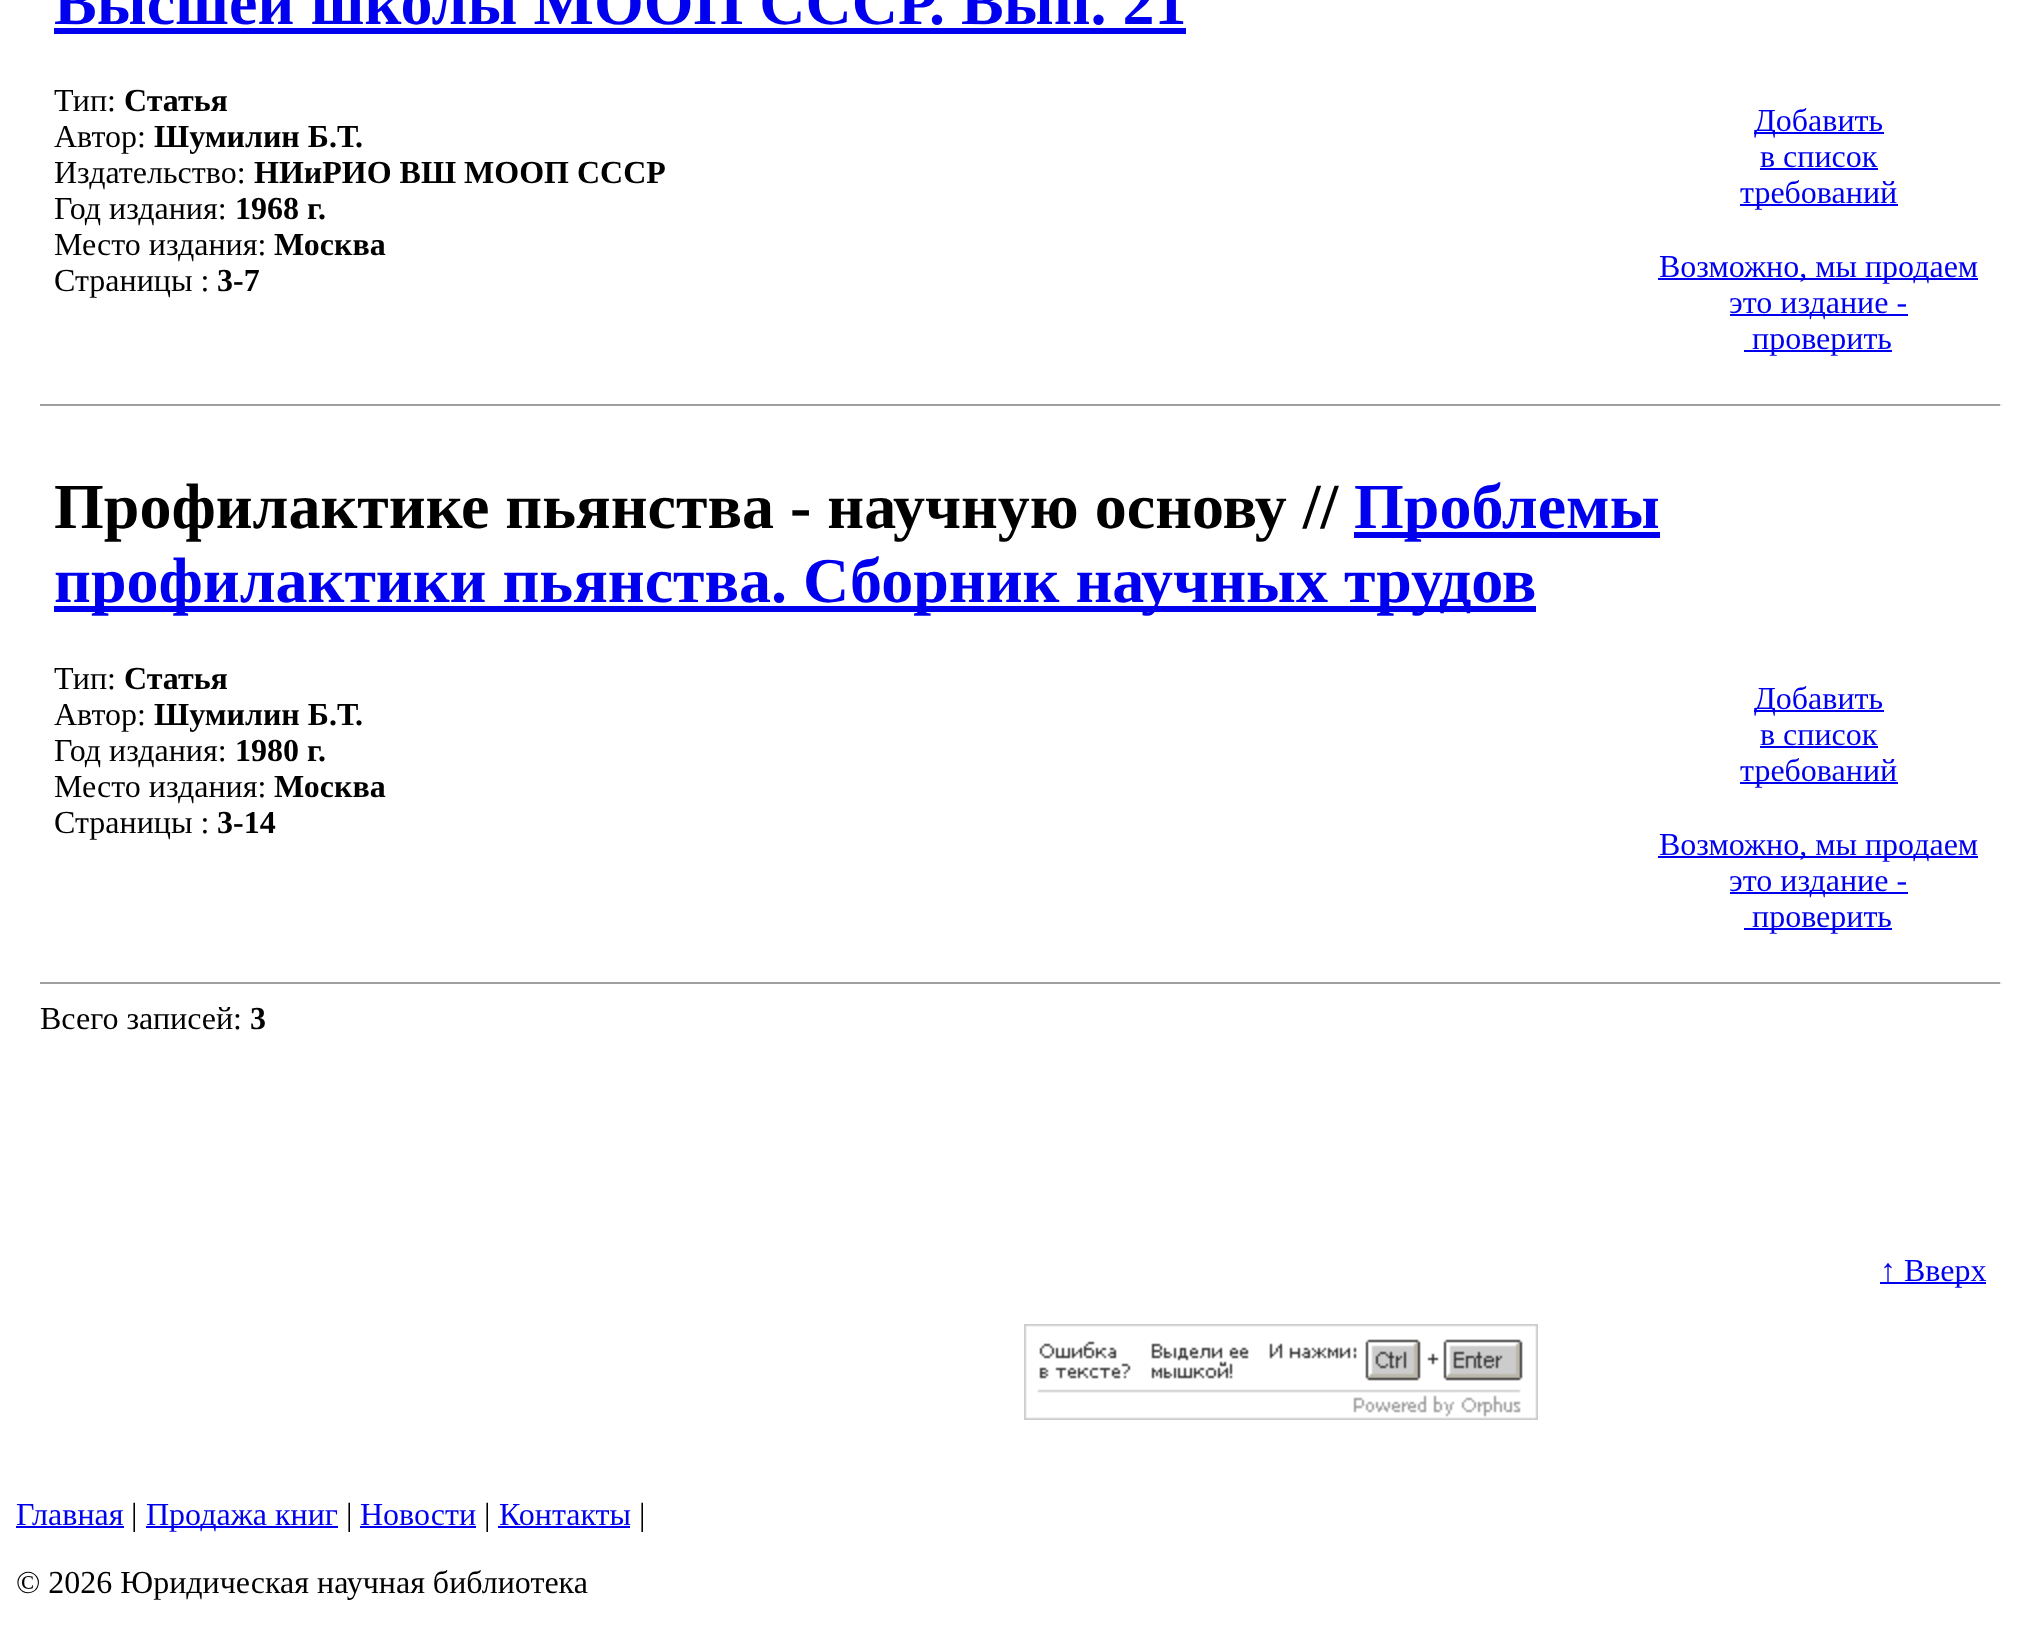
async function draw(canvas) {
	canvas.width = 2018;
	canvas.height = 1632;
	const c = canvas.getContext('2d');
	c.miterLimit = 4;
	c.fontKerning = 'normal';
	async function loadImage(src) {
		const img = new Image();
		img.src = src;
		await img.decode();
		return img;
	}

	c.fillStyle = '#fff';
	c.fillRect(0, 0, 2018, 1632);
	c.font = 'bold 64px Liberation Serif';
	c.fillStyle = '#00e';
	c.fillText('Высшей школы МООП СССР. Вып. 21', 54, 24);
	c.fillRect(54, 28, 1132, 6);
	c.font = '32px Liberation Serif';
	c.fillStyle = '#000';
	c.fillText('Тип:', 54, 111);
	c.font = 'bold 32px Liberation Serif';
	c.fillText('Статья', 124, 111);
	c.font = '32px Liberation Serif';
	c.fillText('Автор:', 54, 147);
	c.font = 'bold 32px Liberation Serif';
	c.fillText('Шумилин Б.Т.', 154, 147);
	c.fillStyle = '#00e';
	c.fillRect(1754, 132, 130, 2);
	c.font = '32px Liberation Serif';
	c.fillText('Добавить', 1754, 131);
	c.fillText('в список', 1760, 167);
	c.fillRect(1760, 168, 118, 2);
	c.fillRect(1740, 204, 158, 2);
	c.fillText('требований', 1740, 203);
	c.fillRect(1658, 278, 320, 2);
	c.fillText('Возможно, мы продаем', 1659, 277);
	c.fillRect(1730, 314, 178, 2);
	c.fillText('это издание -', 1729, 313);
	c.fillRect(1744, 350, 148, 2);
	c.fillText('проверить', 1752, 349);
	c.fillStyle = '#000';
	c.fillText('Издательство:', 54, 183);
	c.font = 'bold 32px Liberation Serif';
	c.fillText('НИиРИО ВШ МООП СССР', 254, 183);
	c.font = '32px Liberation Serif';
	c.fillText('Год издания:', 54, 219);
	c.font = 'bold 32px Liberation Serif';
	c.fillText('1968 г.', 235, 219);
	c.font = '32px Liberation Serif';
	c.fillText('Место издания:', 54, 255);
	c.font = 'bold 32px Liberation Serif';
	c.fillText('Москва', 274, 255);
	c.font = '32px Liberation Serif';
	c.fillText('Страницы :', 54, 291);
	c.font = 'bold 32px Liberation Serif';
	c.fillText('3-7', 217, 291);
	c.fillStyle = '#9f9f9f';
	c.fillRect(40, 404, 1962, 2);
	c.fillStyle = '#eee';
	c.fillRect(2000, 404, 2, 2);
	c.font = 'bold 64px Liberation Serif';
	c.fillStyle = '#000';
	c.fillText('Профилактике пьянства - научную основу //', 54, 528);
	c.fillStyle = '#00e';
	c.fillRect(1354, 532, 306, 6);
	c.fillText('Проблемы', 1354, 528);
	c.fillRect(54, 606, 1482, 6);
	c.fillText('профилактики пьянства. Сборник научных трудов', 54, 602);
	c.font = '32px Liberation Serif';
	c.fillStyle = '#000';
	c.fillText('Тип:', 54, 689);
	c.font = 'bold 32px Liberation Serif';
	c.fillText('Статья', 124, 689);
	c.font = '32px Liberation Serif';
	c.fillText('Автор:', 54, 725);
	c.font = 'bold 32px Liberation Serif';
	c.fillText('Шумилин Б.Т.', 154, 725);
	c.fillStyle = '#00e';
	c.fillRect(1754, 710, 130, 2);
	c.font = '32px Liberation Serif';
	c.fillText('Добавить', 1754, 709);
	c.fillText('в список', 1760, 745);
	c.fillRect(1760, 746, 118, 2);
	c.fillRect(1740, 782, 158, 2);
	c.fillText('требований', 1740, 781);
	c.fillRect(1658, 856, 320, 2);
	c.fillText('Возможно, мы продаем', 1659, 855);
	c.fillRect(1730, 892, 178, 2);
	c.fillText('это издание -', 1729, 891);
	c.fillRect(1744, 928, 148, 2);
	c.fillText('проверить', 1752, 927);
	c.fillStyle = '#000';
	c.fillText('Год издания:', 54, 761);
	c.font = 'bold 32px Liberation Serif';
	c.fillText('1980 г.', 235, 761);
	c.font = '32px Liberation Serif';
	c.fillText('Место издания:', 54, 797);
	c.font = 'bold 32px Liberation Serif';
	c.fillText('Москва', 274, 797);
	c.font = '32px Liberation Serif';
	c.fillText('Страницы :', 54, 833);
	c.font = 'bold 32px Liberation Serif';
	c.fillText('3-14', 217, 833);
	c.fillStyle = '#9f9f9f';
	c.fillRect(40, 982, 1962, 2);
	c.fillStyle = '#eee';
	c.fillRect(2000, 982, 2, 2);
	c.font = '32px Liberation Serif';
	c.fillStyle = '#000';
	c.fillText('Всего записей:', 40, 1029);
	c.font = 'bold 32px Liberation Serif';
	c.fillText('3', 250, 1029);
	c.fillStyle = '#00e';
	c.fillRect(1880, 1282, 106, 2);
	c.font = '32px Liberation Serif';
	c.fillText('↑ Вверх', 1880, 1281);
	c.drawImage(await loadImage('img1.png'), 1024, 1324, 514, 96);
	c.fillText('Главная', 16, 1525);
	c.fillRect(16, 1526, 108, 2);
	c.fillStyle = '#000';
	c.fillText('|', 131, 1525);
	c.fillStyle = '#00e';
	c.fillRect(146, 1526, 192, 2);
	c.fillText('Продажа книг', 146, 1525);
	c.fillStyle = '#000';
	c.fillText('|', 346, 1525);
	c.fillStyle = '#00e';
	c.fillText('Новости', 360, 1525);
	c.fillRect(360, 1526, 116, 2);
	c.fillStyle = '#000';
	c.fillText('|', 484, 1525);
	c.fillStyle = '#00e';
	c.fillText('Контакты', 499, 1525);
	c.fillRect(498, 1526, 132, 2);
	c.fillStyle = '#000';
	c.fillText('|', 639, 1525);
	c.fillText('© 2026 Юридическая научная библиотека', 16, 1593);
}

draw(document.querySelector('canvas'));
